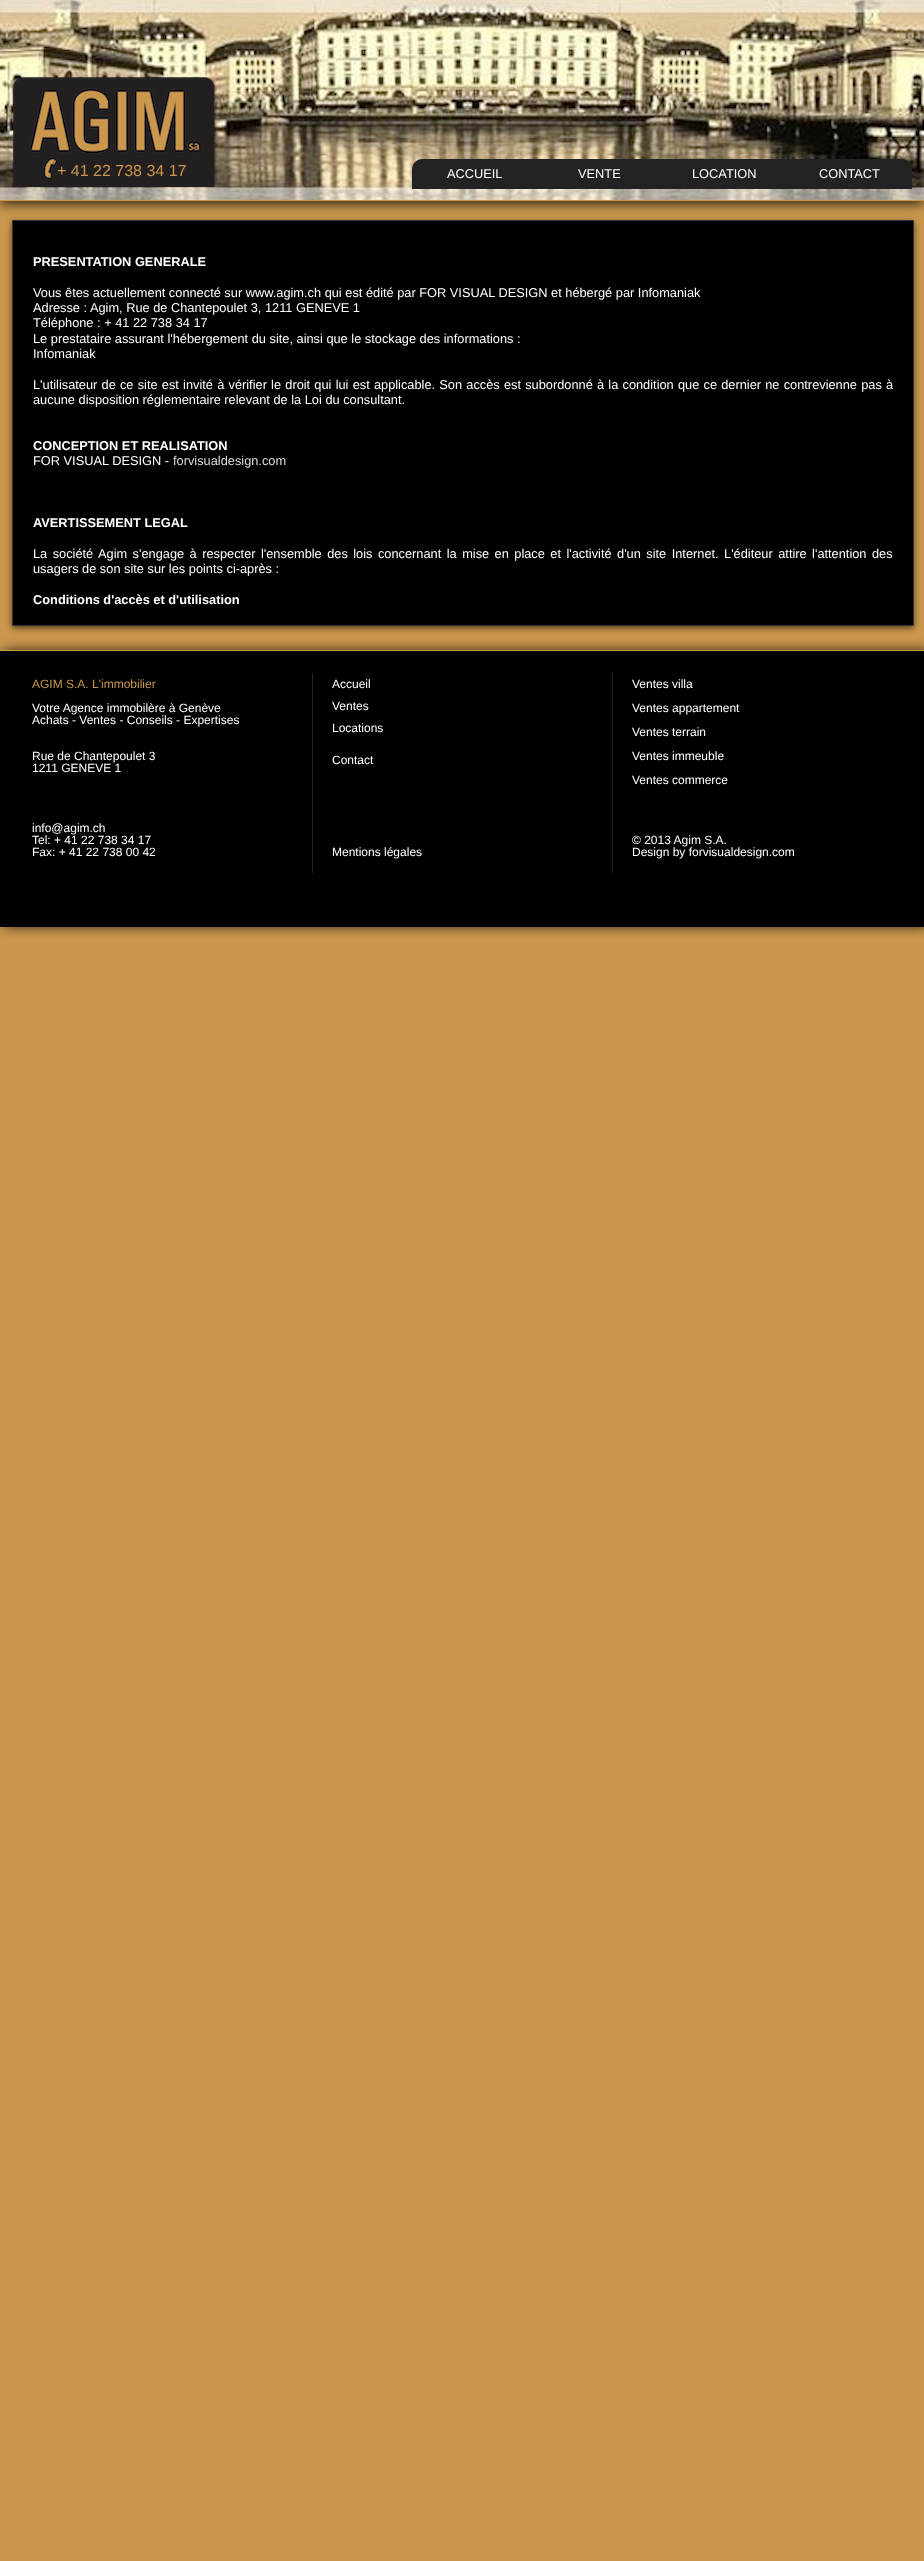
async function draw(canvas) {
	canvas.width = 924;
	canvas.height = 2561;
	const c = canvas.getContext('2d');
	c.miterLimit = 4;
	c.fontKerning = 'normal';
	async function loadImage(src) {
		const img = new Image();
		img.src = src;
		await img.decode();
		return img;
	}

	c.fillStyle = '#ca974d';
	c.fillRect(0, 0, 924, 2561);
	c.fillStyle = '#00000099';
	c.filter = 'blur(3px)';
	c.beginPath();
	c.rect(12, 222, 902, 406);
	c.fill();
	c.filter = 'none';
	c.strokeStyle = '#333';
	c.strokeRect(12.5, 220.5, 901, 405);
	c.fillStyle = '#000';
	c.fillRect(13, 221, 900, 404);
	c.fillStyle = '#000000bf';
	c.filter = 'blur(6px)';
	c.beginPath();
	c.rect(0, 4, 924, 200);
	c.fill();
	c.filter = 'none';
	c.drawImage(await loadImage('img1.png'), 0, 0, 924, 200);
	c.drawImage(await loadImage('img2.png'), 12, 76, 205, 111);
	c.font = '16px Liberation Sans';
	c.fillStyle = '#ca974d';
	c.fillText('+ 41 22 738 34 17', 57, 176);
	c.fillStyle = '#222';
	c.beginPath();
	c.roundRect(412, 159, 500, 30, [10, 10, 0, 0]);
	c.fill();
	c.font = '12.8px Liberation Sans';
	c.fillStyle = '#fff';
	for (const [text, x, y] of [
		['ACCUEIL', 447, 178],
		['VENTE', 578, 178],
		['LOCATION', 692, 178],
		['CONTACT', 819, 178],
	]) {
		c.fillText(text, x, y);
	}
	c.fillStyle = '#ca974d';
	c.fillRect(0, 200, 924, 1);
	c.font = 'bold 12.8px Liberation Sans';
	c.fillStyle = '#fff';
	c.fillText('PRESENTATION GENERALE', 33, 266);
	c.font = '12.8px Liberation Sans';
	for (const [text, x, y] of [
		['Vous êtes actuellement connecté sur www.agim.ch qui est édité par FOR VISUAL DESIGN et hébergé par Infomaniak', 33, 297],
		['Adresse : Agim, Rue de Chantepoulet 3, 1211 GENEVE 1', 33, 312],
		['Téléphone : + 41 22 738 34 17', 33, 327],
		['Le prestataire assurant l\'hébergement du site, ainsi que le stockage des informations :', 33, 343],
		['Infomaniak', 33, 358],
	]) {
		c.fillText(text, x, y);
	}
	c.wordSpacing = '0.65px';
	c.fillText('L\'utilisateur de ce site est invité à vérifier le droit qui lui est applicable. Son accès est subordonné à la condition que ce dernier ne contrevienne pas à', 33, 389);
	c.wordSpacing = '0px';
	c.fillText('aucune disposition réglementaire relevant de la Loi du consultant.', 33, 404);
	c.font = 'bold 12.8px Liberation Sans';
	c.fillText('CONCEPTION ET REALISATION', 33, 450);
	c.font = '12.8px Liberation Sans';
	c.fillText('FOR VISUAL DESIGN -', 33, 465);
	c.fillStyle = '#ddd';
	c.fillText('forvisualdesign.com', 173, 465);
	c.font = 'bold 12.8px Liberation Sans';
	c.fillStyle = '#fff';
	c.fillText('AVERTISSEMENT LEGAL', 33, 527);
	c.wordSpacing = '1.9px';
	c.font = '12.8px Liberation Sans';
	c.fillText('La société Agim s\'engage à respecter l\'ensemble des lois concernant la mise en place et l\'activité d\'un site Internet. L\'éditeur attire l\'attention des', 33, 558);
	c.wordSpacing = '0px';
	c.fillText('usagers de son site sur les points ci-après :', 33, 573);
	c.font = 'bold 12.8px Liberation Sans';
	c.fillText('Conditions d\'accès et d\'utilisation', 33, 604);
	c.fillStyle = '#000000bf';
	c.filter = 'blur(6px)';
	c.beginPath();
	c.rect(4, 650, 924, 277);
	c.fill();
	c.filter = 'none';
	c.fillStyle = '#000';
	c.fillRect(0, 651, 924, 276);
	c.fillStyle = '#ca974d';
	c.fillRect(0, 650, 924, 1);
	c.font = '12px Liberation Sans';
	c.fillText('AGIM S.A. L\'immobilier', 32, 688);
	c.fillStyle = '#fff';
	for (const [text, x, y] of [
		['Votre Agence immobilère à Genève', 32, 712],
		['Achats - Ventes - Conseils - Expertises', 32, 724],
		['Rue de Chantepoulet 3', 32, 760],
		['1211 GENEVE 1', 32, 772],
		['info@agim.ch', 32, 832],
		['Tel: + 41 22 738 34 17', 32, 844],
		['Fax: + 41 22 738 00 42', 32, 856],
	]) {
		c.fillText(text, x, y);
	}
	c.fillStyle = '#222';
	c.fillRect(312, 673, 1, 200);
	c.fillStyle = '#fff';
	for (const [text, x, y] of [
		['Accueil', 332, 688],
		['Ventes', 332, 710],
		['Locations', 332, 732],
		['Contact', 332, 764],
		['Mentions légales', 332, 856],
	]) {
		c.fillText(text, x, y);
	}
	c.fillStyle = '#222';
	c.fillRect(612, 673, 1, 200);
	c.fillStyle = '#fff';
	for (const [text, x, y] of [
		['Ventes villa', 632, 688],
		['Ventes appartement', 632, 712],
		['Ventes terrain', 632, 736],
		['Ventes immeuble', 632, 760],
		['Ventes commerce', 632, 784],
		['© 2013 Agim S.A.', 632, 844],
		['Design by forvisualdesign.com', 632, 856],
	]) {
		c.fillText(text, x, y);
	}
}

draw(document.querySelector('canvas'));
